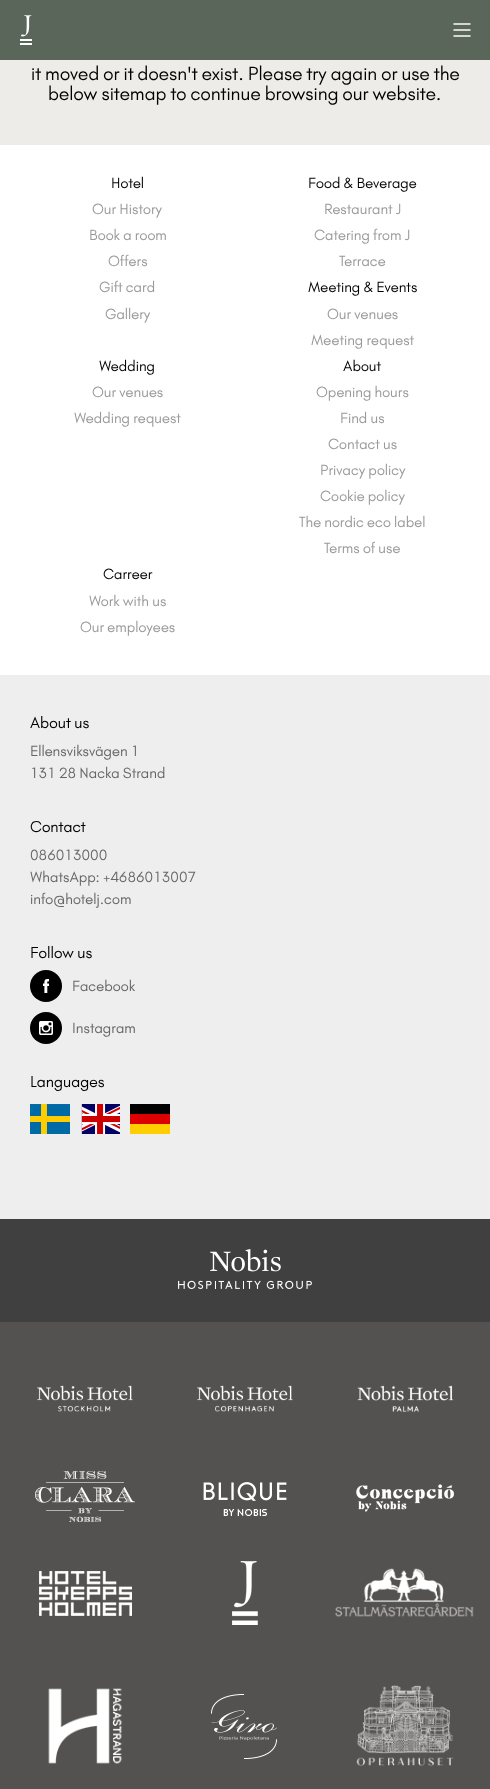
async function draw(canvas) {
	canvas.width = 490;
	canvas.height = 1789;
	const c = canvas.getContext('2d');
	c.miterLimit = 4;
	c.fontKerning = 'normal';
	async function loadImage(src) {
		const img = new Image();
		img.src = src;
		await img.decode();
		return img;
	}

	c.fillStyle = '#eeece8';
	c.fillRect(0, 0, 490, 1789);
	c.fillStyle = '#5b665a';
	c.fillRect(0, 0, 490, 60);
	c.drawImage(await loadImage('img1.png'), 20, 15, 12, 30);
	c.drawImage(await loadImage('img2.png'), 453, 23, 18, 14);
	c.font = '18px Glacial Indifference';
	c.fillStyle = '#000';
	c.fillText('it moved or it doesn\'t exist. Please try again or use the', 31, 80);
	c.fillText('below sitemap to continue browsing our website.', 48, 100);
	c.fillStyle = '#fff';
	c.fillRect(0, 145, 490, 530);
	c.font = '14px Glacial Indifference';
	c.fillStyle = '#000';
	c.fillText('Hotel', 111, 188);
	c.fillStyle = '#999';
	for (const [text, x, y] of [
		['Our History', 92, 214],
		['Book a room', 89, 240],
		['Offers', 108, 266],
		['Gift card', 99, 292],
		['Gallery', 105, 319],
	]) {
		c.fillText(text, x, y);
	}
	c.fillStyle = '#000';
	c.fillText('Food & Beverage', 308, 188);
	c.fillStyle = '#999';
	for (const [text, x, y] of [
		['Restaurant J', 324, 214],
		['Catering from J', 314, 240],
		['Terrace', 339, 266],
	]) {
		c.fillText(text, x, y);
	}
	c.fillStyle = '#000';
	c.fillText('Meeting & Events', 308, 292);
	c.fillStyle = '#999';
	c.fillText('Our venues', 327, 319);
	c.fillText('Meeting request', 311, 345);
	c.fillStyle = '#000';
	c.fillText('Wedding', 99, 371);
	c.fillStyle = '#999';
	c.fillText('Our venues', 92, 397);
	c.fillText('Wedding request', 74, 423);
	c.fillStyle = '#000';
	c.fillText('About', 343, 371);
	c.fillStyle = '#999';
	for (const [text, x, y] of [
		['Opening hours', 316, 397],
		['Find us', 340, 423],
		['Contact us', 328, 449],
		['Privacy policy', 320, 475],
		['Cookie policy', 320, 501],
		['The nordic eco label', 299, 527],
		['Terms of use', 324, 553],
	]) {
		c.fillText(text, x, y);
	}
	c.fillStyle = '#000';
	c.fillText('Carreer', 103, 579);
	c.fillStyle = '#999';
	c.fillText('Work with us', 89, 606);
	c.fillText('Our employees', 80, 632);
	c.fillStyle = '#eee';
	c.fillRect(0, 675, 490, 544);
	c.font = '15px Glacial Indifference';
	c.fillStyle = '#000';
	c.fillText('About us', 30, 728);
	c.font = '14px Glacial Indifference';
	c.fillStyle = '#666';
	c.fillText('Ellensviksvägen 1', 30, 756);
	c.fillText('131 28 Nacka Strand', 30, 778);
	c.font = '15px Glacial Indifference';
	c.fillStyle = '#000';
	c.fillText('Contact', 30, 832);
	c.font = '14px Glacial Indifference';
	c.fillStyle = '#666';
	for (const [text, x, y] of [
		['086013000', 30, 860],
		['WhatsApp: +4686013007', 30, 882],
		['info@hotelj.com', 30, 904],
	]) {
		c.fillText(text, x, y);
	}
	c.font = '15px Glacial Indifference';
	c.fillStyle = '#000';
	c.fillText('Follow us', 30, 958);
	c.beginPath();
	c.arc(46, 986, 16, 0, 2 * Math.PI);
	c.fill();
	c.drawImage(await loadImage('img3.png'), 43, 979, 6, 14);
	c.font = '14px Glacial Indifference';
	c.fillStyle = '#666';
	c.fillText('Facebook', 72, 991);
	c.fillStyle = '#000';
	c.beginPath();
	c.arc(46, 1028, 16, 0, 2 * Math.PI);
	c.fill();
	c.drawImage(await loadImage('img4.png'), 39, 1021, 14, 14);
	c.fillStyle = '#666';
	c.fillText('Instagram', 72, 1033);
	c.font = '15px Glacial Indifference';
	c.fillStyle = '#000';
	c.fillText('Languages', 30, 1087);
	c.drawImage(await loadImage('img5.png'), 30, 1104, 40, 30);
	c.drawImage(await loadImage('img6.png'), 81, 1104, 39, 30);
	for (const [x, y, w, h, color] of [
		[130, 1124, 40, 10, '#ffce00'],
		[130, 1104, 40, 10, '#000'],
		[130, 1114, 40, 10, '#d00'],
		[0, 1322, 490, 467, '#545250'],
		[0, 1219, 490, 103, '#404040'],
	]) {
		c.fillStyle = color;
		c.fillRect(x, y, w, h);
	}
	c.drawImage(await loadImage('img7.png'), 178, 1249, 134, 40);
	c.drawImage(await loadImage('img8.png'), 37, 1385, 96, 27);
	c.drawImage(await loadImage('img9.png'), 197, 1385, 96, 27);
	c.drawImage(await loadImage('img10.png'), 357, 1385, 97, 27);
	c.drawImage(await loadImage('img11.png'), 35, 1471, 100, 51);
	c.drawImage(await loadImage('img12.png'), 203, 1482, 84, 35);
	c.drawImage(await loadImage('img13.png'), 356, 1484, 98, 28);
	c.drawImage(await loadImage('img14.png'), 39, 1571, 93, 45);
	c.drawImage(await loadImage('img15.png'), 232, 1561, 26, 64);
	c.drawImage(await loadImage('img16.png'), 335, 1568, 139, 49);
	c.drawImage(await loadImage('img17.png'), 48, 1688, 74, 76);
	c.drawImage(await loadImage('img18.png'), 211, 1694, 66, 65);
	c.drawImage(await loadImage('img19.png'), 356, 1685, 98, 82);
}

draw(document.querySelector('canvas'));
